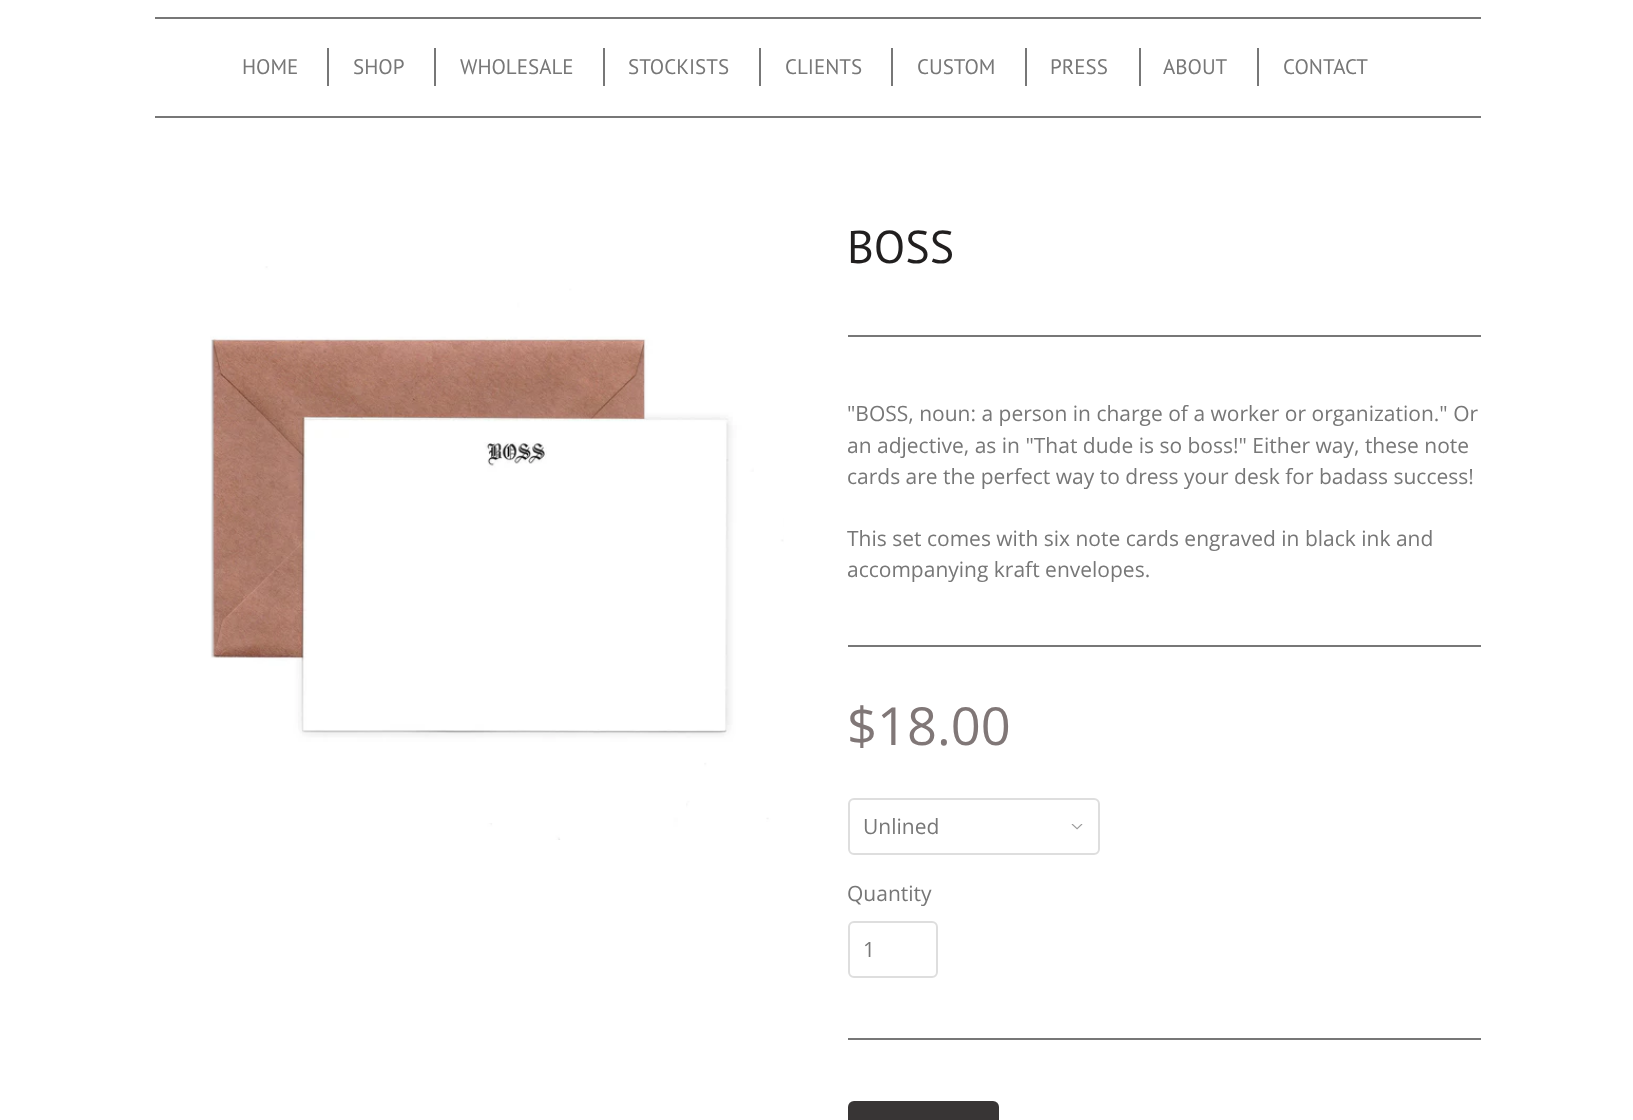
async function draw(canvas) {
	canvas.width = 1633;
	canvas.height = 1120;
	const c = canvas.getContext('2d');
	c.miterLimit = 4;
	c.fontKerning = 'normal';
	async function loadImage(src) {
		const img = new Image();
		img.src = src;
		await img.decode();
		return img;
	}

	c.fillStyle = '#fff';
	c.fillRect(0, 0, 1633, 1120);
	c.fillStyle = '#777';
	c.fillRect(155, 17, 1326, 2);
	c.fillRect(155, 116, 1326, 2);
	c.font = '21px PT Sans';
	c.fillText('HOME', 242, 74);
	c.fillRect(327, 48, 2, 38);
	c.fillText('SHOP', 353, 74);
	c.fillRect(434, 48, 2, 38);
	c.fillText('WHOLESALE', 460, 74);
	c.fillRect(603, 48, 2, 38);
	c.fillText('STOCKISTS', 628, 74);
	c.fillRect(759, 48, 2, 38);
	c.fillText('CLIENTS', 785, 74);
	c.fillRect(891, 48, 2, 38);
	c.fillText('CUSTOM', 917, 74);
	c.fillRect(1025, 48, 2, 38);
	c.fillText('PRESS', 1050, 74);
	c.fillRect(1139, 48, 2, 38);
	c.fillText('ABOUT', 1163, 74);
	c.fillRect(1257, 48, 2, 38);
	c.fillText('CONTACT', 1283, 74);
	c.drawImage(await loadImage('img1.png'), 210, 266, 574, 574);
	c.font = '46px PT Sans';
	c.fillStyle = '#211f1f';
	c.fillText('BOSS', 847, 263);
	c.fillStyle = '#777';
	c.fillRect(848, 335, 633, 2);
	c.font = '21px Open Sans';
	for (const [text, x, y] of [
		['"BOSS, noun: a person in charge of a worker or organization." Or', 847, 421],
		['an adjective, as in "That dude is so boss!" Either way, these note', 847, 453],
		['cards are the perfect way to dress your desk for badass success!', 847, 484],
		['This set comes with six note cards engraved in black ink and', 847, 546],
		['accompanying kraft envelopes.', 847, 577],
	]) {
		c.fillText(text, x, y);
	}
	c.fillRect(848, 645, 633, 2);
	c.font = '52.5px Open Sans';
	c.fillStyle = '#807777';
	c.fillText('$18.00', 847, 745);
	c.drawImage(await loadImage('img2.png'), 1071, 824, 12, 6);
	c.beginPath();
	c.roundRect(849, 799, 250, 55, 5);
	c.strokeStyle = '#dedede';
	c.lineWidth = 2;
	c.stroke();
	c.font = '21px Open Sans';
	c.fillStyle = '#777';
	c.fillText('Unlined', 863, 834);
	c.fillText('Quantity', 847, 901);
	c.beginPath();
	c.roundRect(849, 922, 88, 55, 5);
	c.stroke();
	c.fillText('1', 863, 957);
	c.fillRect(848, 1038, 633, 2);
	c.fillStyle = '#383535';
	c.beginPath();
	c.roundRect(848, 1101, 151, 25, 6);
	c.fill();
}

draw(document.querySelector('canvas'));
